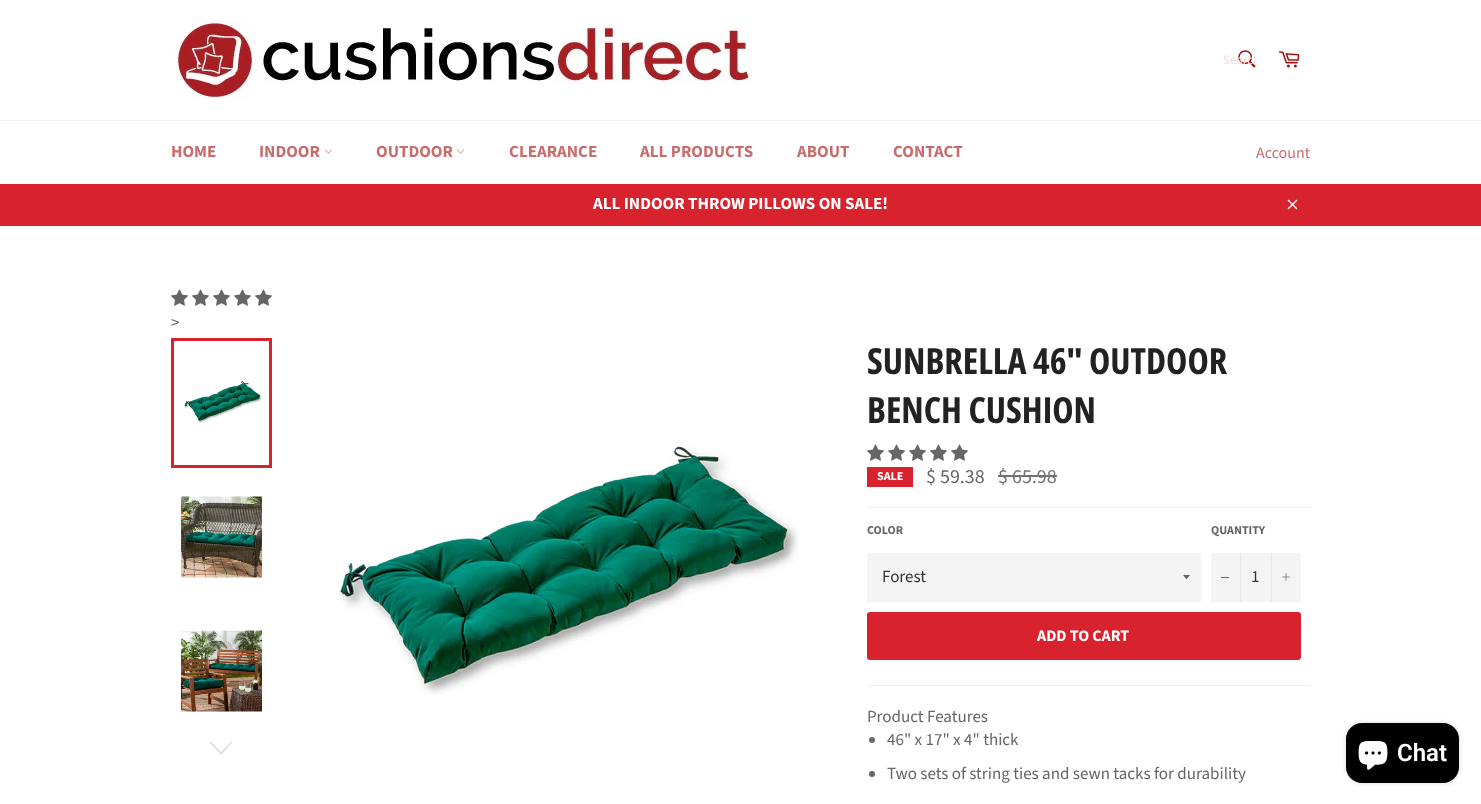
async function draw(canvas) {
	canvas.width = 1481;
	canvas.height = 804;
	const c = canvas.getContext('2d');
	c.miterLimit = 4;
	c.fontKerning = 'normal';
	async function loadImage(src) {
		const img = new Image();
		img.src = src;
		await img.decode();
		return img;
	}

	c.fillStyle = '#fff';
	c.fillRect(0, 0, 1481, 804);
	c.drawImage(await loadImage('img1.png'), 175, 20, 576, 80);
	c.drawImage(await loadImage('img2.png'), 1238, 50, 18, 18);
	c.save();
	c.beginPath();
	c.rect(1223, 51, 32, 18);
	c.clip();
	c.font = '13px Source Sans Pro';
	c.fillStyle = '#f2dcdb';
	c.fillText('Search', 1223, 64);
	c.restore();
	c.drawImage(await loadImage('img3.png'), 1278, 51, 22, 17);
	c.fillStyle = '#f2f2f2';
	c.fillRect(0, 120, 1481, 1);
	c.font = 'bold 17px Source Sans Pro';
	c.fillStyle = '#c86d6d';
	c.fillText('HOME', 171, 157);
	c.fillText('INDOOR', 259, 157);
	c.drawImage(await loadImage('img4.png'), 325, 149, 7, 5);
	c.fillText('OUTDOOR', 376, 157);
	c.drawImage(await loadImage('img4.png'), 457, 149, 7, 5);
	for (const [text, x, y] of [
		['CLEARANCE', 509, 157],
		['ALL PRODUCTS', 640, 157],
		['ABOUT', 797, 157],
		['CONTACT', 893, 157],
	]) {
		c.fillText(text, x, y);
	}
	c.font = '16px Source Sans Pro';
	c.fillText('Account', 1256, 158);
	c.fillStyle = '#d8232f';
	c.fillRect(0, 184, 1481, 42);
	c.font = 'bold 17px Source Sans Pro';
	c.fillStyle = '#fff';
	c.fillText('ALL INDOOR THROW PILLOWS ON SALE!', 593, 209);
	c.drawImage(await loadImage('img5.png'), 1287, 199, 11, 11);
	c.drawImage(await loadImage('img6.png'), 171, 289, 17, 17);
	c.drawImage(await loadImage('img6.png'), 192, 289, 17, 17);
	c.drawImage(await loadImage('img6.png'), 213, 289, 17, 17);
	c.drawImage(await loadImage('img6.png'), 234, 289, 17, 17);
	c.drawImage(await loadImage('img6.png'), 255, 289, 17, 17);
	c.font = '17px Source Sans Pro';
	c.fillStyle = '#666';
	c.fillText('>', 171, 328);
	c.drawImage(await loadImage('img7.png'), 183, 381, 79, 42);
	c.strokeStyle = '#d8232f';
	c.lineWidth = 3;
	c.strokeRect(172.5, 339.5, 98, 127);
	c.drawImage(await loadImage('img8.png'), 181, 496, 81, 82);
	c.drawImage(await loadImage('img9.png'), 181, 630, 81, 82);
	c.fillStyle = '#e0e0e0';
	c.beginPath();
	c.moveTo(231.5, 741);
	c.lineTo(232.5, 742.5);
	c.lineTo(221, 755);
	c.lineTo(209.5, 742.5);
	c.lineTo(210.5, 741);
	c.lineTo(221, 752);
	c.closePath();
	c.fill();
	c.drawImage(await loadImage('img10.png'), 339, 444, 460, 251);
	c.font = 'bold 36px Open Sans Condensed';
	c.fillStyle = '#222';
	c.fillText('SUNBRELLA 46" OUTDOOR', 867, 374);
	c.fillText('BENCH CUSHION', 867, 423);
	c.drawImage(await loadImage('img6.png'), 867, 444, 17, 17);
	c.drawImage(await loadImage('img6.png'), 888, 444, 17, 17);
	c.drawImage(await loadImage('img6.png'), 909, 444, 17, 17);
	c.drawImage(await loadImage('img6.png'), 930, 444, 17, 17);
	c.drawImage(await loadImage('img6.png'), 951, 444, 17, 17);
	c.fillStyle = '#d8232f';
	c.fillRect(867, 467, 46, 20);
	c.font = 'bold 12px Source Sans Pro';
	c.fillStyle = '#fff';
	c.fillText('SALE', 877, 480);
	c.font = '20px Source Sans Pro';
	c.fillStyle = '#666';
	c.fillText('$ 59.38', 926, 483);
	c.fillStyle = '#737373';
	c.fillText('$ 65.98', 998, 483);
	c.fillRect(998, 475, 59, 2);
	c.fillStyle = '#f0f0f0';
	c.fillRect(867, 507, 444, 1);
	c.font = 'bold 12px Source Sans Pro';
	c.fillStyle = '#666';
	c.fillText('COLOR', 867, 534);
	c.fillStyle = '#f4f4f4';
	c.fillRect(867, 553, 334, 49);
	c.fillStyle = '#666';
	c.beginPath();
	c.moveTo(1183, 575);
	c.bezierCurveTo(1187.5, 580.5, 1185.5, 580.5, 1190, 575);
	c.closePath();
	c.fill();
	c.font = '17px Source Sans Pro';
	c.fillStyle = '#333';
	c.fillText('Forest', 882, 582);
	c.font = 'bold 12px Source Sans Pro';
	c.fillStyle = '#666';
	c.fillText('QUANTITY', 1211, 534);
	for (const [x, y, w, h, color] of [
		[1211, 553, 90, 49, '#f4f4f4'],
		[1240, 553, 1, 49, '#e7e7e7'],
		[1221, 577, 8, 1, '#666'],
	]) {
		c.fillStyle = color;
		c.fillRect(x, y, w, h);
	}
	c.font = '17px Source Sans Pro';
	c.fillStyle = '#333';
	c.fillText('1', 1251, 582);
	c.fillStyle = '#e7e7e7';
	c.fillRect(1271, 553, 1, 49);
	c.drawImage(await loadImage('img11.png'), 1282, 573, 8, 8);
	c.fillStyle = '#d8232f';
	c.beginPath();
	c.roundRect(867, 612, 434, 48, 3);
	c.fill();
	c.font = 'bold 16px Source Sans Pro';
	c.fillStyle = '#fff';
	c.fillText('ADD TO CART', 1037, 641);
	c.fillStyle = '#f0f0f0';
	c.fillRect(867, 685, 444, 1);
	c.font = '17px Source Sans Pro';
	c.fillStyle = '#666';
	c.fillText('Product Features', 867, 722);
	c.beginPath();
	c.arc(872, 740, 3, 0, 2 * Math.PI);
	c.fill();
	c.fillText('46" x 17" x 4" thick', 887, 745);
	c.beginPath();
	c.arc(872, 774, 3, 0, 2 * Math.PI);
	c.fill();
	c.fillText('Two sets of string ties and sewn tacks for durability', 887, 779);
	c.fillStyle = '#00000026';
	c.filter = 'blur(2.5px)';
	c.beginPath();
	c.roundRect(1346, 723, 113, 60, 16);
	c.fill();
	c.filter = 'none';
	c.fillStyle = '#000';
	c.beginPath();
	c.roundRect(1346, 723, 113, 60, 16);
	c.fill();
	c.drawImage(await loadImage('img12.png'), 1358, 741, 30, 29);
	c.font = '600 24px Roboto';
	c.fillStyle = '#fff';
	c.fillText('Chat', 1397, 761);
}

draw(document.querySelector('canvas'));
